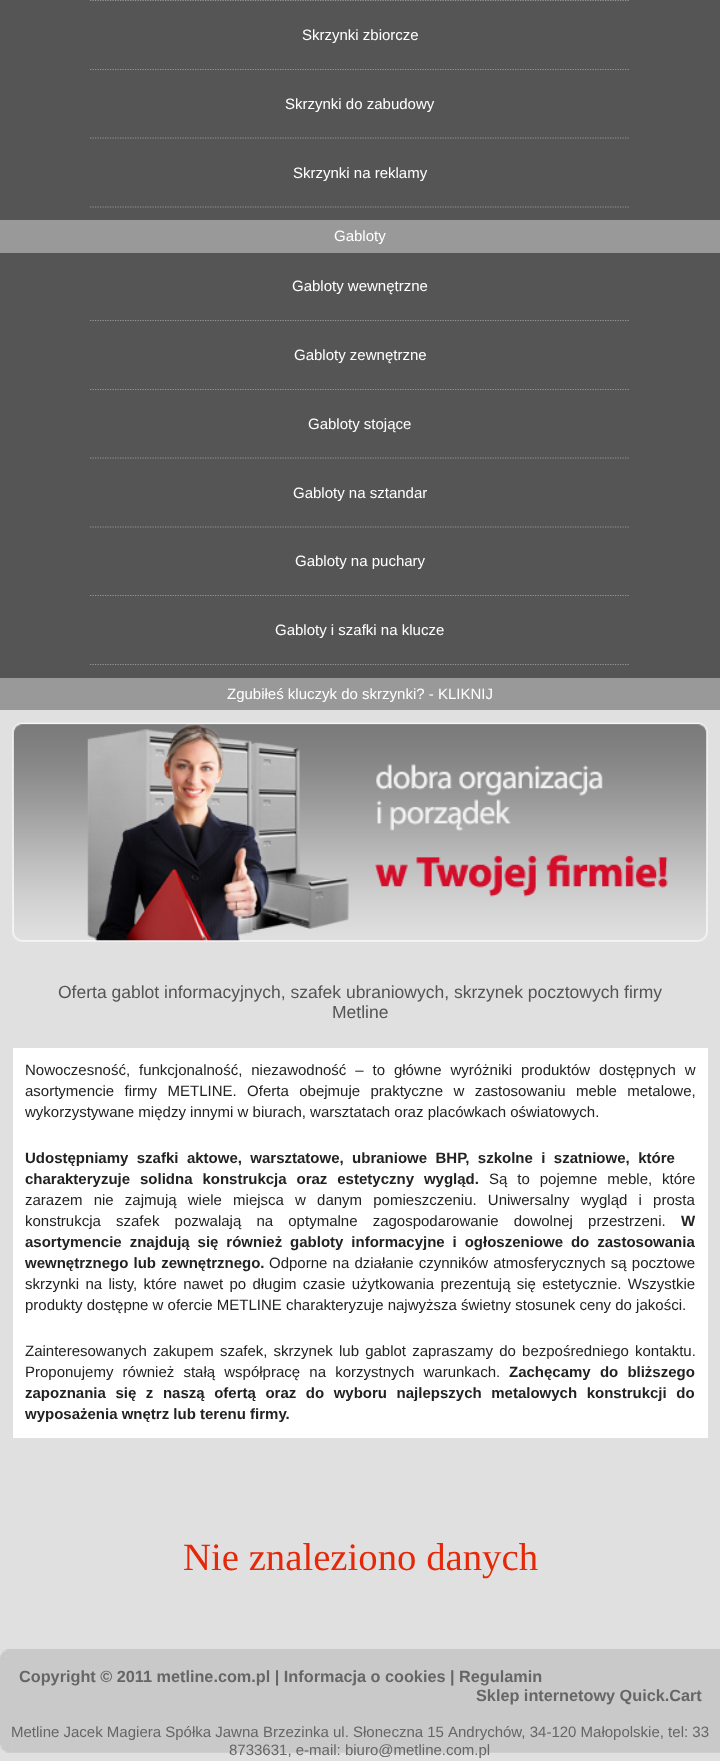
async function draw(canvas) {
	canvas.width = 720;
	canvas.height = 1761;
	const c = canvas.getContext('2d');
	c.miterLimit = 4;
	c.fontKerning = 'normal';
	async function loadImage(src) {
		const img = new Image();
		img.src = src;
		await img.decode();
		return img;
	}

	c.fillStyle = '#e0e0e0';
	c.fillRect(0, 0, 720, 1761);
	c.fillStyle = '#555';
	c.fillRect(0, 0, 720, 678);
	c.beginPath();
	c.moveTo(90, 0.5);
	c.lineTo(630, 0.5);
	c.strokeStyle = '#959595';
	c.lineWidth = 1.2;
	c.setLineDash([1.25, 1.25]);
	c.stroke();
	c.beginPath();
	c.moveTo(90, 69.5);
	c.lineTo(630, 69.5);
	c.stroke();
	c.font = '15px Liberation Sans';
	c.fillStyle = '#fff';
	c.fillText('Skrzynki zbiorcze', 302, 40);
	c.beginPath();
	c.moveTo(90, 138);
	c.lineTo(630, 138);
	c.stroke();
	c.fillText('Skrzynki do zabudowy', 285, 109);
	c.beginPath();
	c.moveTo(90, 207);
	c.lineTo(630, 207);
	c.stroke();
	c.fillText('Skrzynki na reklamy', 293, 178);
	c.fillStyle = '#999';
	c.fillRect(0, 220, 720, 33);
	c.fillStyle = '#fff';
	c.fillText('Gabloty', 334, 241);
	c.beginPath();
	c.moveTo(90, 320.5);
	c.lineTo(630, 320.5);
	c.stroke();
	c.fillText('Gabloty wewnętrzne', 292, 291);
	c.beginPath();
	c.moveTo(90, 389.5);
	c.lineTo(630, 389.5);
	c.stroke();
	c.fillText('Gabloty zewnętrzne', 294, 360);
	c.beginPath();
	c.moveTo(90, 458);
	c.lineTo(630, 458);
	c.stroke();
	c.fillText('Gabloty stojące', 308, 429);
	c.beginPath();
	c.moveTo(90, 527);
	c.lineTo(630, 527);
	c.stroke();
	c.fillText('Gabloty na sztandar', 293, 498);
	c.beginPath();
	c.moveTo(90, 595.5);
	c.lineTo(630, 595.5);
	c.stroke();
	c.fillText('Gabloty na puchary', 295, 566);
	c.beginPath();
	c.moveTo(90, 664.5);
	c.lineTo(630, 664.5);
	c.stroke();
	c.fillText('Gabloty i szafki na klucze', 275, 635);
	c.fillStyle = '#999';
	c.fillRect(0, 678, 720, 32);
	c.fillStyle = '#fff';
	c.fillText('Zgubiłeś kluczyk do skrzynki? - KLIKNIJ', 227, 699);
	c.drawImage(await loadImage('img1.png'), 12, 722, 696, 220);
	c.font = '17.5px Liberation Sans';
	c.fillStyle = '#555';
	c.fillText('Oferta gablot informacyjnych, szafek ubraniowych, skrzynek pocztowych firmy', 58, 998);
	c.fillText('Metline', 332, 1018);
	c.fillStyle = '#fff';
	c.fillRect(13, 1048, 695, 390);
	c.wordSpacing = '4.75px';
	c.font = '15px Liberation Sans';
	c.fillStyle = '#222';
	c.fillText('Nowoczesność, funkcjonalność, niezawodność – to główne wyróżniki produktów dostępnych w', 25, 1075);
	c.wordSpacing = '6.25px';
	c.fillText('asortymencie firmy METLINE. Oferta obejmuje praktyczne w zastosowaniu meble metalowe,', 25, 1096);
	c.wordSpacing = '0px';
	c.fillText('wykorzystywane między innymi w biurach, warsztatach oraz placówkach oświatowych.', 25, 1117);
	c.wordSpacing = '4.25px';
	c.font = 'bold 15px Liberation Sans';
	c.fillText('Udostępniamy szafki aktowe, warsztatowe, ubraniowe BHP, szkolne i szatniowe, które', 25, 1163);
	c.wordSpacing = '5.75px';
	c.fillText('charakteryzuje solidna konstrukcja oraz estetyczny wygląd.', 25, 1184);
	c.font = '15px Liberation Sans';
	c.fillText('Są to pojemne meble, które', 489, 1184);
	c.wordSpacing = '7px';
	c.fillText('zarazem nie zajmują wiele miejsca w danym pomieszczeniu. Uniwersalny wygląd i prosta', 25, 1205);
	c.wordSpacing = '11px';
	c.fillText('konstrukcja szafek pozwalają na optymalne zagospodarowanie dowolnej przestrzeni.', 25, 1226);
	c.wordSpacing = '0px';
	c.font = 'bold 15px Liberation Sans';
	c.fillText('W', 681, 1226);
	c.wordSpacing = '3.75px';
	c.fillText('asortymencie znajdują się również gabloty informacyjne i ogłoszeniowe do zastosowania', 25, 1247);
	c.wordSpacing = '1px';
	c.fillText('wewnętrznego lub zewnętrznego.', 25, 1268);
	c.font = '15px Liberation Sans';
	c.fillText('Odporne na działanie czynników atmosferycznych są pocztowe', 269, 1268);
	c.wordSpacing = '2.1px';
	c.fillText('skrzynki na listy, które nawet po długim czasie użytkowania prezentują się estetycznie. Wszystkie', 25, 1289);
	c.wordSpacing = '0px';
	c.fillText('produkty dostępne w ofercie METLINE charakteryzuje najwyższa świetny stosunek ceny do jakości.', 25, 1310);
	c.wordSpacing = '2px';
	c.fillText('Zainteresowanych zakupem szafek, skrzynek lub gablot zapraszamy do bezpośredniego kontaktu.', 25, 1356);
	c.wordSpacing = '5px';
	c.fillText('Proponujemy również stałą współpracę na korzystnych warunkach.', 25, 1377);
	c.font = 'bold 15px Liberation Sans';
	c.fillText('Zachęcamy do bliższego', 509, 1377);
	c.wordSpacing = '5.4px';
	c.fillText('zapoznania się z naszą ofertą oraz do wyboru najlepszych metalowych konstrukcji do', 25, 1398);
	c.wordSpacing = '0px';
	c.fillText('wyposażenia wnętrz lub terenu firmy.', 25, 1419);
	c.font = '38.75px Liberation Serif';
	c.fillStyle = '#e62808';
	c.fillText('Nie znaleziono danych', 183, 1570);
	c.drawImage(await loadImage('img2.png'), 0, 1649, 720, 104);
	c.font = 'bold 16.25px Liberation Sans';
	c.fillStyle = '#666';
	c.fillText('Copyright © 2011 metline.com.pl | Informacja o cookies | Regulamin', 19, 1682);
	c.fillText('Sklep internetowy Quick.Cart', 476, 1701);
	c.font = '15px Liberation Sans';
	for (const [text, x, y] of [
		['Metline Jacek Magiera Spółka Jawna', 11, 1737],
		['Brzezinka ul. Słoneczna 15', 263, 1737],
		['Andrychów, 34-120 Małopolskie, tel: 33', 448, 1737],
		['8733631, e-mail: biuro@metline.com.pl', 229, 1755],
	]) {
		c.fillText(text, x, y);
	}
}

draw(document.querySelector('canvas'));
